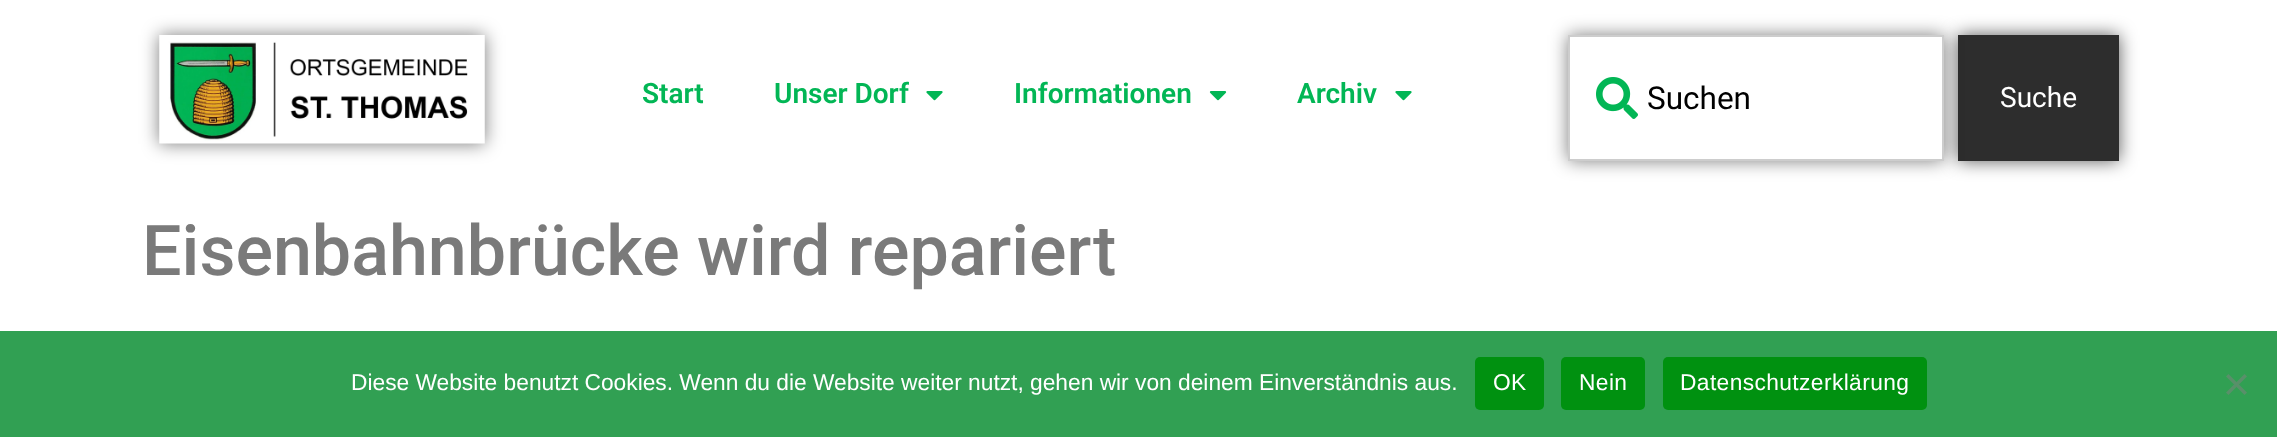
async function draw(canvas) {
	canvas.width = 2277;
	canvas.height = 437;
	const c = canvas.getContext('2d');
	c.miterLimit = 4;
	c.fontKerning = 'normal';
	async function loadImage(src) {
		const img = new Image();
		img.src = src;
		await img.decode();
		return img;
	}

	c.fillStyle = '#fff';
	c.fillRect(0, 0, 2277, 437);
	c.fillStyle = '#00000080';
	c.filter = 'blur(9px)';
	c.beginPath();
	c.rect(159, 35, 326, 109);
	c.fill();
	c.filter = 'none';
	c.drawImage(await loadImage('img1.png'), 159, 35, 326, 109);
	c.font = '600 28px Roboto';
	c.fillStyle = '#02b655';
	c.fillText('Start', 642, 103);
	c.fillText('Unser Dorf', 774, 103);
	c.drawImage(await loadImage('img2.png'), 926, 91, 17, 10);
	c.fillText('Informationen', 1014, 103);
	c.drawImage(await loadImage('img3.png'), 1209, 91, 18, 10);
	c.fillText('Archiv', 1297, 103);
	c.drawImage(await loadImage('img2.png'), 1395, 91, 17, 10);
	c.fillStyle = '#000000a6';
	c.filter = 'blur(9px)';
	c.beginPath();
	c.rect(1958, 35, 161, 126);
	c.fill();
	c.filter = 'none';
	c.fillStyle = '#2d2d2d';
	c.fillRect(1958, 35, 161, 126);
	c.fillStyle = '#00000080';
	c.filter = 'blur(9px)';
	c.beginPath();
	c.rect(1568, 35, 376, 126);
	c.fill();
	c.filter = 'none';
	c.fillStyle = '#fff';
	c.beginPath();
	c.rect(1569, 36, 374, 124);
	c.fill();
	c.strokeStyle = '#cdcdcd';
	c.lineWidth = 2;
	c.stroke();
	c.drawImage(await loadImage('img4.png'), 1596, 77, 42, 42);
	c.font = '31.5px Roboto';
	c.fillStyle = '#000';
	c.fillText('Suchen', 1647, 109);
	c.font = '28px Roboto';
	c.fillStyle = '#fff';
	c.fillText('Suche', 2000, 107);
	c.font = '500 70px Roboto';
	c.fillStyle = '#7a7a7a';
	c.fillText('Eisenbahnbrücke wird repariert', 142, 275);
	c.fillStyle = '#31a053';
	c.fillRect(0, 331, 2277, 106);
	c.font = '22.75px Liberation Sans';
	c.fillStyle = '#fff';
	c.fillText('Diese Website benutzt Cookies. Wenn du die Website weiter nutzt, gehen wir von deinem Einverständnis aus.', 351, 390);
	c.fillStyle = '#009110';
	c.beginPath();
	c.roundRect(1475, 357, 69, 53, 5);
	c.fill();
	c.letterSpacing = '0.4px';
	c.fillStyle = '#fff';
	c.fillText('OK', 1493, 390);
	c.fillStyle = '#009110';
	c.beginPath();
	c.roundRect(1561, 357, 84, 53, 5);
	c.fill();
	c.fillStyle = '#fff';
	c.fillText('Nein', 1579, 390);
	c.fillStyle = '#009110';
	c.beginPath();
	c.roundRect(1663, 357, 264, 53, 5);
	c.fill();
	c.fillStyle = '#fff';
	c.fillText('Datenschutzerklärung', 1680, 390);
	c.fillStyle = '#59906a';
	c.beginPath();
	c.moveTo(2244.5, 374);
	c.lineTo(2247, 376.5);
	c.lineTo(2228.5, 395);
	c.lineTo(2226, 392.5);
	c.closePath();
	c.fill();
	c.beginPath();
	c.moveTo(2226, 376.5);
	c.lineTo(2228.5, 374);
	c.lineTo(2247, 392.5);
	c.lineTo(2244.5, 395);
	c.closePath();
	c.fill();
}

draw(document.querySelector('canvas'));
